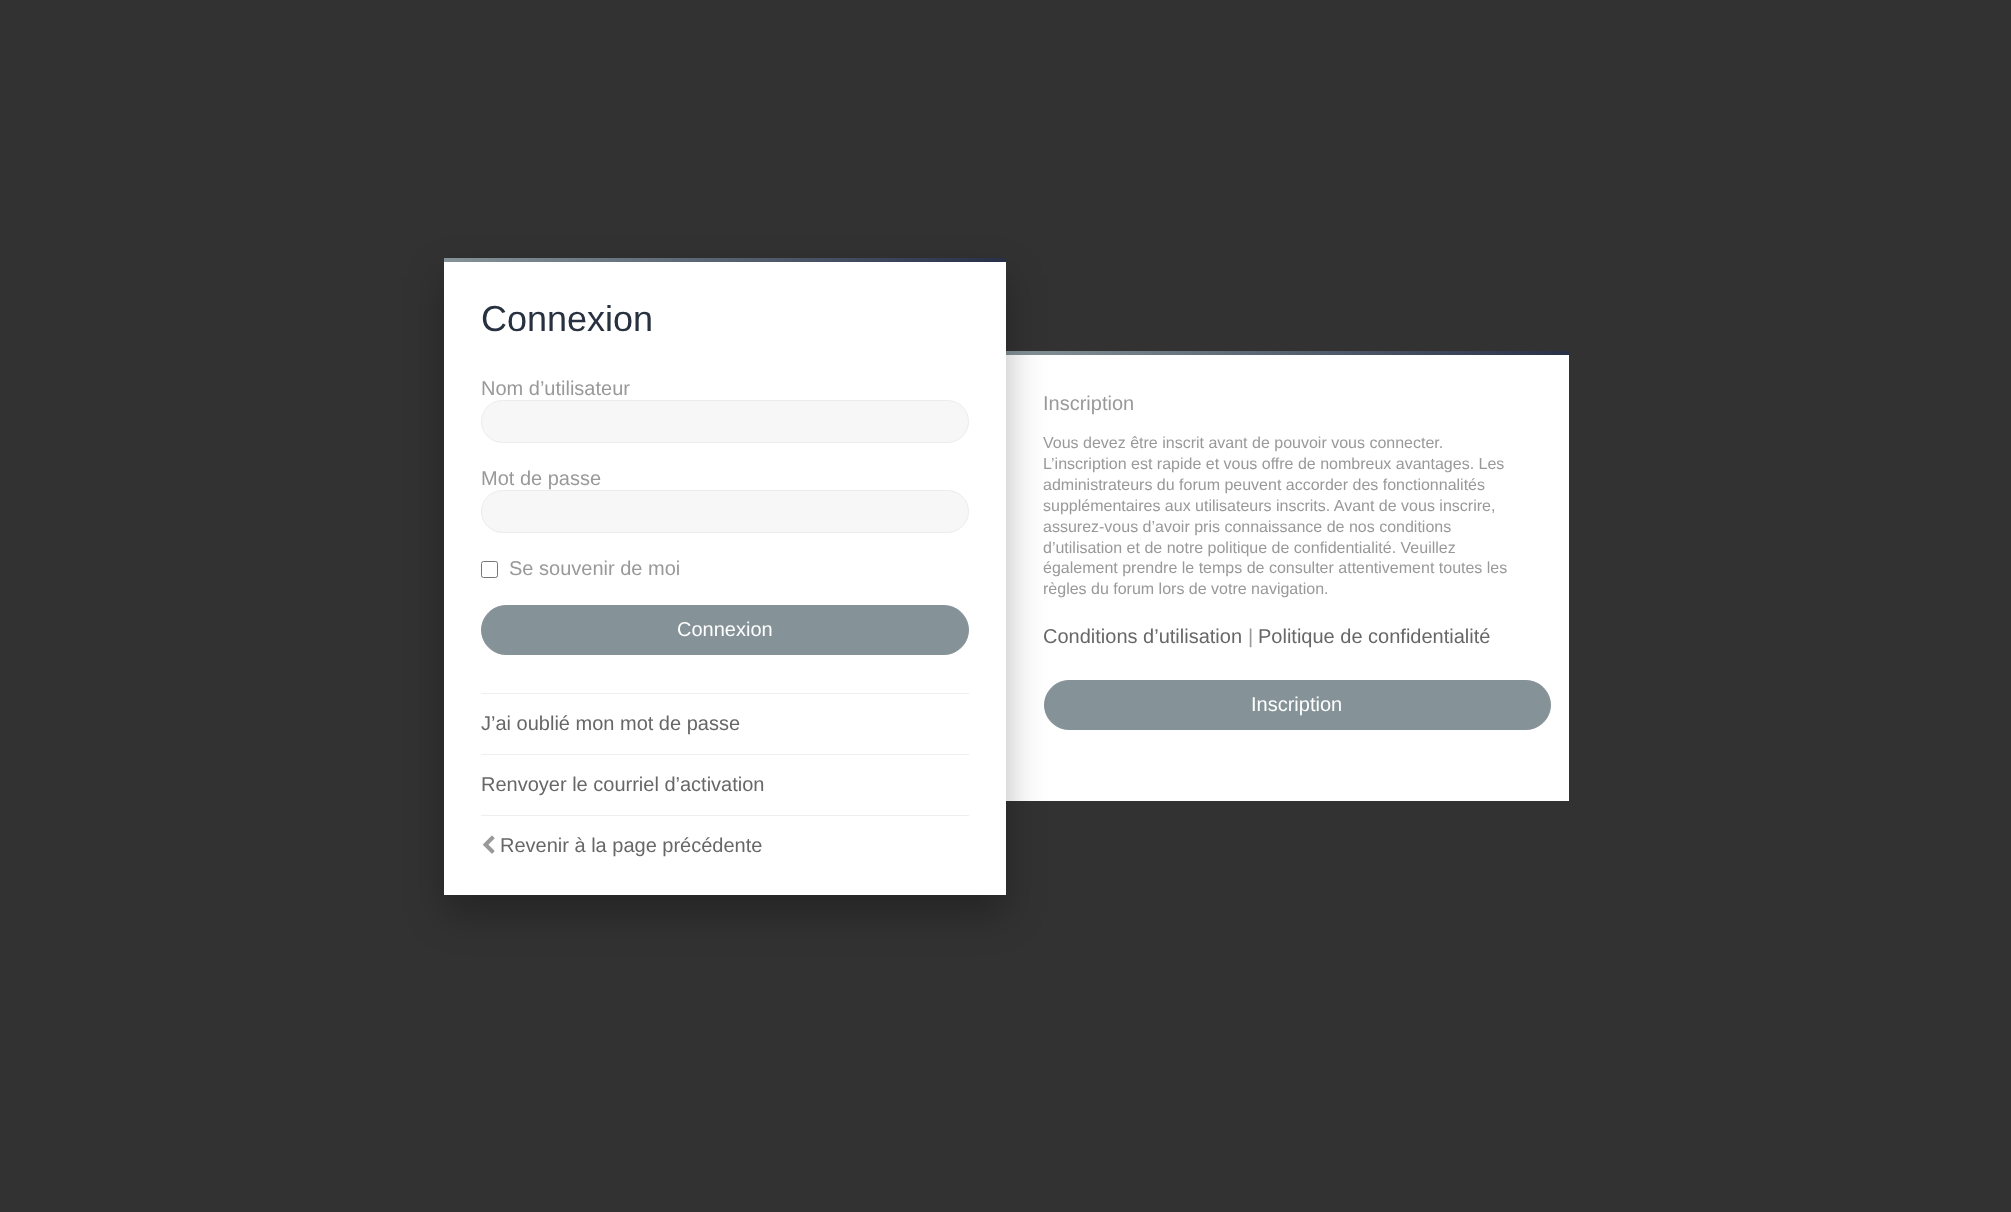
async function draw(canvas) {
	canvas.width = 2011;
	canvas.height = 1212;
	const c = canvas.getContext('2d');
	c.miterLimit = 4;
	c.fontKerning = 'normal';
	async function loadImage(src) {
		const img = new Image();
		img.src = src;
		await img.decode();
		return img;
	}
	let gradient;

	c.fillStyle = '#323232';
	c.fillRect(0, 0, 2011, 1212);
	c.fillStyle = '#fff';
	c.fillRect(1006, 355, 563, 446);
	gradient = c.createLinearGradient(1006, 353, 1569, 353);
	gradient.addColorStop(0, '#859398');
	gradient.addColorStop(1, '#283048');
	c.fillStyle = gradient;
	c.fillRect(1006, 351, 563, 4);
	c.fillStyle = '#859398';
	c.beginPath();
	c.roundRect(1044.5, 680.5, 506, 49, 24.5);
	c.fill();
	c.strokeStyle = '#859398';
	c.stroke();
	c.fillStyle = '#00000045';
	c.filter = 'blur(19px)';
	c.beginPath();
	c.rect(444, 276, 562, 638);
	c.fill();
	c.filter = 'none';
	c.fillStyle = '#fff';
	c.fillRect(444, 262, 562, 633);
	gradient = c.createLinearGradient(444, 259, 1006, 259);
	gradient.addColorStop(0, '#859398');
	gradient.addColorStop(1, '#283048');
	c.fillStyle = gradient;
	c.fillRect(444, 258, 562, 4);
	c.font = '36px Liberation Sans';
	c.fillStyle = '#28313f';
	c.fillText('Connexion', 481, 331);
	c.font = '20px Liberation Sans';
	c.fillStyle = '#999';
	c.fillText('Nom d’utilisateur', 481, 395);
	c.fillStyle = '#f7f7f7';
	c.beginPath();
	c.roundRect(481.5, 400.5, 487, 42, 21);
	c.fill();
	c.strokeStyle = '#edecec';
	c.stroke();
	c.fillStyle = '#999';
	c.fillText('Mot de passe', 481, 485);
	c.fillStyle = '#f7f7f7';
	c.beginPath();
	c.roundRect(481.5, 490.5, 487, 42, 21);
	c.fill();
	c.stroke();
	c.beginPath();
	c.roundRect(481.5, 561.5, 16, 16, 2);
	c.strokeStyle = '#767676';
	c.stroke();
	c.fillStyle = '#999';
	c.fillText('Se souvenir de moi', 509, 575);
	c.fillStyle = '#859398';
	c.beginPath();
	c.roundRect(481.5, 605.5, 487, 49, 24.5);
	c.fill();
	c.strokeStyle = '#859398';
	c.stroke();
	c.fillStyle = '#fff';
	c.fillText('Connexion', 677, 636);
	c.fillStyle = '#ecf0f1';
	c.fillRect(481, 693, 488, 1);
	c.fillStyle = '#676767';
	c.fillText('J’ai oublié mon mot de passe', 481, 730);
	c.fillStyle = '#ecf0f1';
	c.fillRect(481, 754, 488, 1);
	c.fillStyle = '#676767';
	c.fillText('Renvoyer le courriel d’activation', 481, 791);
	c.fillStyle = '#ecf0f1';
	c.fillRect(481, 815, 488, 1);
	c.drawImage(await loadImage('img1.png'), 483, 835, 12, 19);
	c.fillStyle = '#676767';
	c.fillText('Revenir à la page précédente', 500, 852);
	c.fillStyle = '#999';
	c.fillText('Inscription', 1043, 410);
	c.font = '16px Liberation Sans';
	for (const [text, x, y] of [
		['Vous devez être inscrit avant de pouvoir vous connecter.', 1043, 448],
		['L’inscription est rapide et vous offre de nombreux avantages. Les', 1043, 469],
		['administrateurs du forum peuvent accorder des fonctionnalités', 1043, 490],
		['supplémentaires aux utilisateurs inscrits. Avant de vous inscrire,', 1043, 511],
		['assurez-vous d’avoir pris connaissance de nos conditions', 1043, 532],
		['d’utilisation et de notre politique de confidentialité. Veuillez', 1043, 553],
		['également prendre le temps de consulter attentivement toutes les', 1043, 573],
		['règles du forum lors de votre navigation.', 1043, 594],
	]) {
		c.fillText(text, x, y);
	}
	c.font = '20px Liberation Sans';
	c.fillStyle = '#676767';
	c.fillText('Conditions d’utilisation', 1043, 643);
	c.fillStyle = '#999';
	c.fillText('|', 1248, 643);
	c.fillStyle = '#676767';
	c.fillText('Politique de confidentialité', 1258, 643);
	c.fillStyle = '#fff';
	c.fillText('Inscription', 1251, 711);
}

draw(document.querySelector('canvas'));
